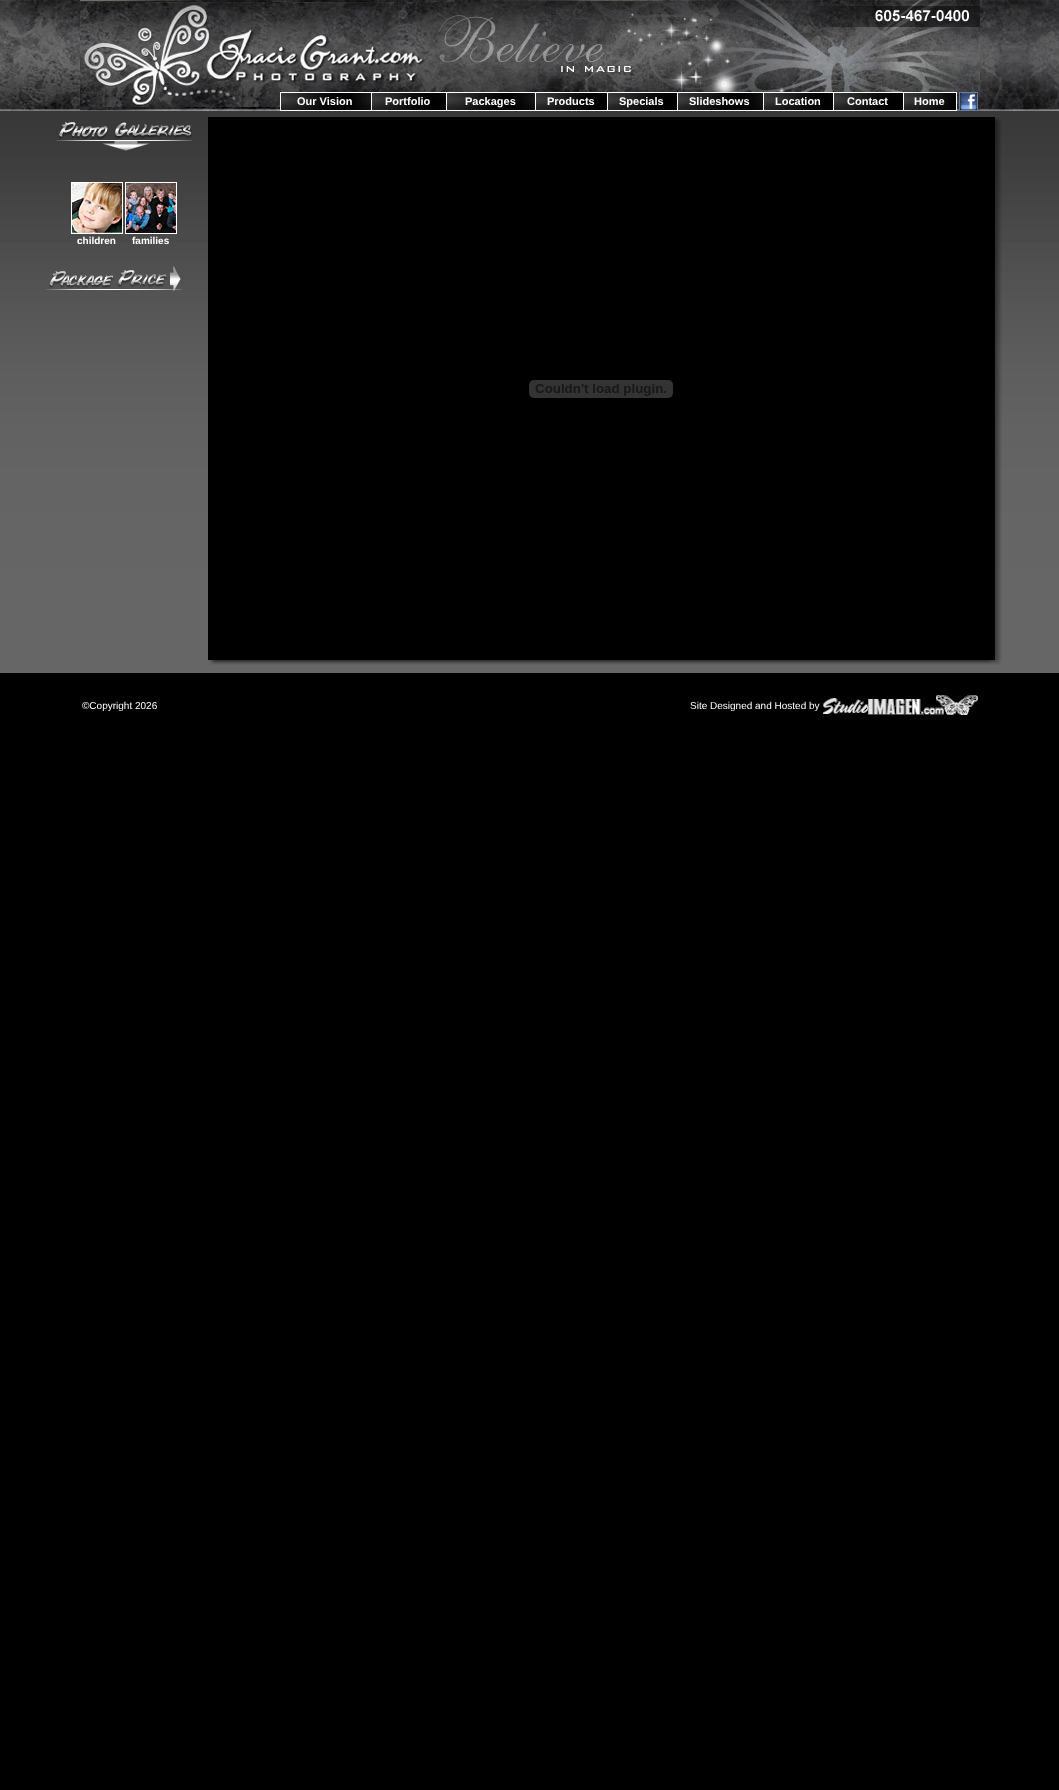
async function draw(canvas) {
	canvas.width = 1059;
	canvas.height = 1790;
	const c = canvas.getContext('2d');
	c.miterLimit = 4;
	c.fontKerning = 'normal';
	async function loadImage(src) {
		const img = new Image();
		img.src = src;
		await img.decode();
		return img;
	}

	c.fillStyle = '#000';
	c.fillRect(0, 0, 1059, 1790);
	c.drawImage(await loadImage('img1.png'), 0, 0, 1059, 111);
	c.drawImage(await loadImage('img2.png'), 80, 0, 900, 111);
	c.drawImage(await loadImage('img3.png'), 280, 92, 91, 19);
	c.font = 'bold 11px Liberation Sans';
	c.fillStyle = '#fff';
	c.fillText('Our Vision', 297, 105);
	c.drawImage(await loadImage('img4.png'), 371, 92, 75, 19);
	c.fillText('Portfolio', 385, 105);
	c.drawImage(await loadImage('img5.png'), 446, 92, 89, 19);
	c.fillText('Packages', 465, 105);
	c.drawImage(await loadImage('img6.png'), 535, 92, 72, 19);
	c.fillText('Products', 547, 105);
	c.drawImage(await loadImage('img7.png'), 607, 92, 70, 19);
	c.fillText('Specials', 619, 105);
	c.drawImage(await loadImage('img8.png'), 677, 92, 86, 19);
	c.fillText('Slideshows', 689, 105);
	c.drawImage(await loadImage('img7.png'), 763, 92, 70, 19);
	c.fillText('Location', 775, 105);
	c.drawImage(await loadImage('img7.png'), 833, 92, 70, 19);
	c.fillText('Contact', 847, 105);
	c.drawImage(await loadImage('img9.png'), 903, 92, 53, 19);
	c.fillText('Home', 914, 105);
	c.fillRect(956, 92, 1, 19);
	c.strokeStyle = '#637fa1';
	c.strokeRect(959.5, 92.5, 18, 18);
	c.drawImage(await loadImage('img10.png'), 960, 93, 17, 17);
	c.drawImage(await loadImage('img11.png'), 0, 111, 1059, 562);
	c.drawImage(await loadImage('img12.png'), 56, 122, 136, 29);
	c.drawImage(await loadImage('img13.png'), 71, 182, 52, 52);
	c.font = 'bold 10px Liberation Sans';
	c.fillText('children', 77, 244);
	c.drawImage(await loadImage('img14.png'), 125, 182, 52, 52);
	c.fillText('families', 132, 244);
	c.drawImage(await loadImage('img15.png'), 46, 266, 136, 26);
	c.fillStyle = '#000';
	c.fillRect(208, 117, 787, 543);
	c.drawImage(await loadImage('img16.png'), 529, 380, 144, 18);
	c.drawImage(await loadImage('img17.png'), 995, 117, 7, 548);
	c.drawImage(await loadImage('img18.png'), 209, 660, 786, 5);
	c.font = '10px Liberation Sans';
	c.fillStyle = '#fff';
	c.fillText('©Copyright 2026', 82, 709);
	c.fillText('Site Designed and Hosted by', 690, 709);
	c.drawImage(await loadImage('img19.png'), 823, 695, 155, 20);
}

draw(document.querySelector('canvas'));
